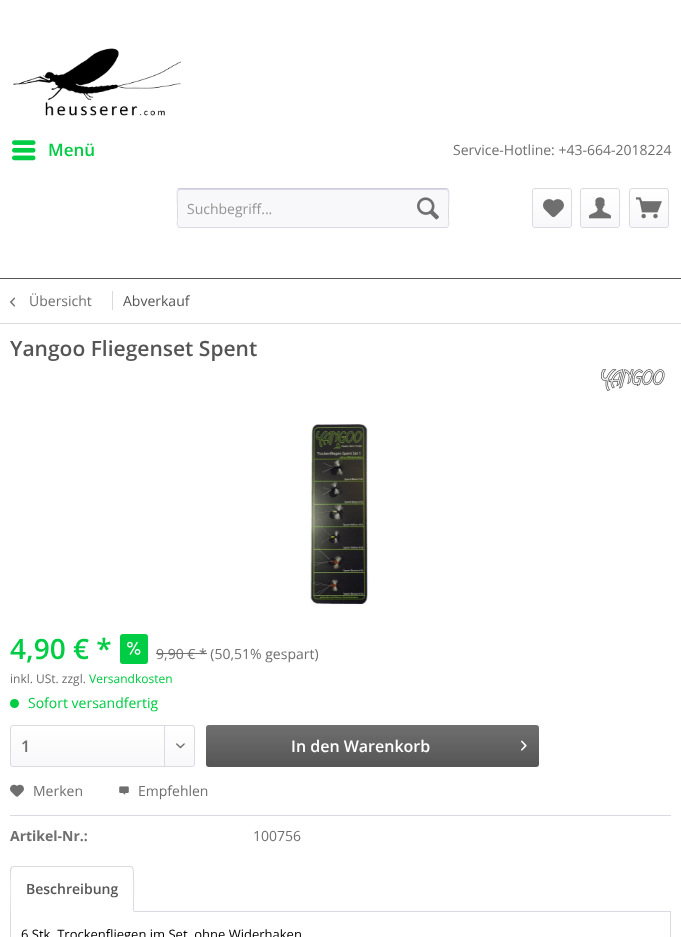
async function draw(canvas) {
	canvas.width = 681;
	canvas.height = 937;
	const c = canvas.getContext('2d');
	c.miterLimit = 4;
	c.fontKerning = 'normal';
	async function loadImage(src) {
		const img = new Image();
		img.src = src;
		await img.decode();
		return img;
	}
	let gradient;

	c.fillStyle = '#fff';
	c.fillRect(0, 0, 681, 937);
	c.fillStyle = '#555';
	c.fillRect(0, 278, 681, 1);
	c.drawImage(await loadImage('img1.png'), 13, 48, 169, 68);
	c.drawImage(await loadImage('img2.png'), 12, 140, 24, 21);
	c.font = '600 17px Open Sans';
	c.fillStyle = '#0c4';
	c.fillText('Menü', 48, 156);
	c.fillStyle = '#f8f8fa';
	c.beginPath();
	c.roundRect(177, 188, 272, 40, 3);
	c.fill();
	c.fillStyle = '#dadae5';
	c.beginPath();
	c.moveTo(180, 190);
	c.lineTo(446, 190);
	c.bezierCurveTo(447, 190, 448, 191, 448, 192);
	c.lineTo(448, 190);
	c.lineTo(446, 189);
	c.lineTo(180, 189);
	c.bezierCurveTo(178, 189, 178, 191, 178, 192);
	c.bezierCurveTo(178, 191, 179, 190, 180, 190);
	c.closePath();
	c.fill();
	c.beginPath();
	c.moveTo(178, 189);
	c.lineTo(180, 188.5);
	c.lineTo(446.5, 188.5);
	c.lineTo(448, 189);
	c.strokeStyle = '#cbcbdb';
	c.stroke();
	c.beginPath();
	c.moveTo(448, 189);
	c.bezierCurveTo(449.5, 191, 448.5, 205, 448.5, 208);
	c.lineTo(448.5, 219.5);
	c.bezierCurveTo(448.5, 221, 450, 227.5, 446, 227.5);
	c.lineTo(180, 227.5);
	c.bezierCurveTo(176, 227.5, 177.5, 221, 177.5, 219.5);
	c.lineTo(177.5, 208);
	c.bezierCurveTo(177.5, 205, 176.5, 191, 178, 189);
	c.strokeStyle = '#dadae5';
	c.stroke();
	c.font = '14px Open Sans';
	c.fillStyle = '#959595';
	c.fillText('Suchbegriff...', 187, 214);
	c.drawImage(await loadImage('img3.png'), 417, 197, 22, 23);
	gradient = c.createLinearGradient(552, 189, 552, 227);
	gradient.addColorStop(0, '#fff');
	gradient.addColorStop(1, '#f8f8fa');
	c.fillStyle = gradient;
	c.beginPath();
	c.roundRect(533, 189, 38, 38, 2);
	c.fill();
	c.beginPath();
	c.roundRect(532.5, 188.5, 39, 39, 2.5);
	c.stroke();
	c.drawImage(await loadImage('img4.png'), 543, 199, 21, 19);
	gradient = c.createLinearGradient(600, 189, 600, 227);
	gradient.addColorStop(0, '#fff');
	gradient.addColorStop(1, '#f8f8fa');
	c.fillStyle = gradient;
	c.beginPath();
	c.roundRect(581, 189, 38, 38, 2);
	c.fill();
	c.beginPath();
	c.roundRect(580.5, 188.5, 39, 39, 2.5);
	c.stroke();
	c.drawImage(await loadImage('img5.png'), 589, 197, 22, 22);
	gradient = c.createLinearGradient(649, 189, 649, 227);
	gradient.addColorStop(0, '#fff');
	gradient.addColorStop(1, '#f8f8fa');
	c.fillStyle = gradient;
	c.beginPath();
	c.roundRect(630, 189, 38, 38, 2);
	c.fill();
	c.beginPath();
	c.roundRect(629.5, 188.5, 39, 39, 2.5);
	c.stroke();
	c.drawImage(await loadImage('img6.png'), 636, 197, 26, 22);
	c.fillStyle = '#6f6f6f';
	c.fillText('Service-Hotline: +43-664-2018224', 453, 155);
	c.fillStyle = '#dadae5';
	c.fillRect(0, 323, 681, 1);
	c.drawImage(await loadImage('img7.png'), 10, 297, 6, 10);
	c.fillStyle = '#6f6f6f';
	c.fillText('Übersicht', 29, 306);
	c.fillStyle = '#dadae5';
	c.fillRect(112, 291, 1, 19);
	c.fillStyle = '#555';
	c.fillText('Abverkauf', 123, 306);
	c.font = '600 21px Open Sans';
	c.fillText('Yangoo Fliegenset Spent', 10, 356);
	c.drawImage(await loadImage('img8.png'), 601, 369, 64, 22);
	c.drawImage(await loadImage('img9.png'), 310, 424, 59, 182);
	c.font = '600 28px Open Sans';
	c.fillStyle = '#0c4';
	c.fillText('4,90 € *', 10, 659);
	c.beginPath();
	c.roundRect(120, 634, 28, 30, 3);
	c.fill();
	c.drawImage(await loadImage('img10.png'), 127, 641, 14, 14);
	c.font = '14px Open Sans';
	c.fillStyle = '#6f6f6f';
	c.fillText('9,90 € * (50,51% gespart)', 156, 659);
	c.fillRect(156, 653, 51, 1);
	c.font = '12px Open Sans';
	c.fillText('inkl. USt. zzgl.', 10, 683);
	c.fillStyle = '#0c4';
	c.fillText('Versandkosten', 89, 683);
	c.beginPath();
	c.arc(14.5, 703.5, 4.5, 0, 2 * Math.PI);
	c.fill();
	c.font = '14px Open Sans';
	c.fillText('Sofort versandfertig', 28, 708);
	gradient = c.createLinearGradient(103, 726, 103, 766);
	gradient.addColorStop(0, '#fff');
	gradient.addColorStop(1, '#f8f8fa');
	c.fillStyle = gradient;
	c.beginPath();
	c.roundRect(11, 726, 183, 40, 2);
	c.fill();
	c.beginPath();
	c.roundRect(10.5, 725.5, 184, 41, 2.5);
	c.stroke();
	c.font = '600 16px Open Sans';
	c.fillStyle = '#6f6f6f';
	c.fillText('1', 21, 752);
	c.fillStyle = '#dadae5';
	c.fillRect(164, 726, 1, 40);
	c.drawImage(await loadImage('img11.png'), 176, 743, 9, 6);
	gradient = c.createLinearGradient(373, 725, 373, 767);
	gradient.addColorStop(0, '#6f6f6f');
	gradient.addColorStop(1, '#555');
	c.fillStyle = gradient;
	c.beginPath();
	c.roundRect(206, 725, 333, 42, 3);
	c.fill();
	c.fillStyle = '#fff';
	c.fillText('In den Warenkorb', 291, 752);
	c.drawImage(await loadImage('img12.png'), 521, 740, 6, 11);
	c.fillStyle = '#dadae5';
	c.fillRect(10, 815, 661, 1);
	c.drawImage(await loadImage('img13.png'), 10, 784, 14, 13);
	c.font = '14px Open Sans';
	c.fillStyle = '#6f6f6f';
	c.fillText('Merken', 33, 796);
	c.drawImage(await loadImage('img14.png'), 119, 786, 10, 9);
	c.fillText('Empfehlen', 138, 796);
	c.font = 'bold 14px Open Sans';
	c.fillText('Artikel-Nr.:', 10, 841);
	c.font = '14px Open Sans';
	c.fillText('100756', 253, 841);
	c.strokeRect(10.5, 911.5, 660, 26);
	c.fillStyle = '#fff';
	c.beginPath();
	c.roundRect(10, 866, 124, 46, [3, 3, 0, 0]);
	c.fill();
	c.fillStyle = '#dadae5';
	c.beginPath();
	c.moveTo(13, 866);
	c.lineTo(11, 867);
	c.lineTo(12, 868);
	c.lineTo(13, 867);
	c.lineTo(131, 867);
	c.lineTo(132, 868);
	c.lineTo(133, 867);
	c.lineTo(131, 866);
	c.closePath();
	c.fill();
	c.beginPath();
	c.moveTo(134, 912);
	c.bezierCurveTo(134, 907, 135, 869, 133, 867);
	c.lineTo(132, 868);
	c.bezierCurveTo(134, 869, 133, 906, 133, 911);
	c.closePath();
	c.fill();
	c.fillStyle = '#fff';
	c.beginPath();
	c.moveTo(134, 912);
	c.lineTo(133, 911);
	c.lineTo(11, 911);
	c.lineTo(10, 912);
	c.closePath();
	c.fill();
	c.fillStyle = '#dadae5';
	c.beginPath();
	c.moveTo(10, 912);
	c.lineTo(11, 911);
	c.bezierCurveTo(11, 906, 10, 869, 12, 868);
	c.lineTo(11, 867);
	c.lineTo(10, 869);
	c.closePath();
	c.fill();
	c.font = '600 14px Open Sans';
	c.fillStyle = '#555';
	c.fillText('Beschreibung', 26, 894);
	c.font = '13px Open Sans';
	c.fillStyle = '#000';
	c.fillText('6 Stk. Trockenfliegen im Set, ohne Widerhaken', 21, 939);
}

draw(document.querySelector('canvas'));
